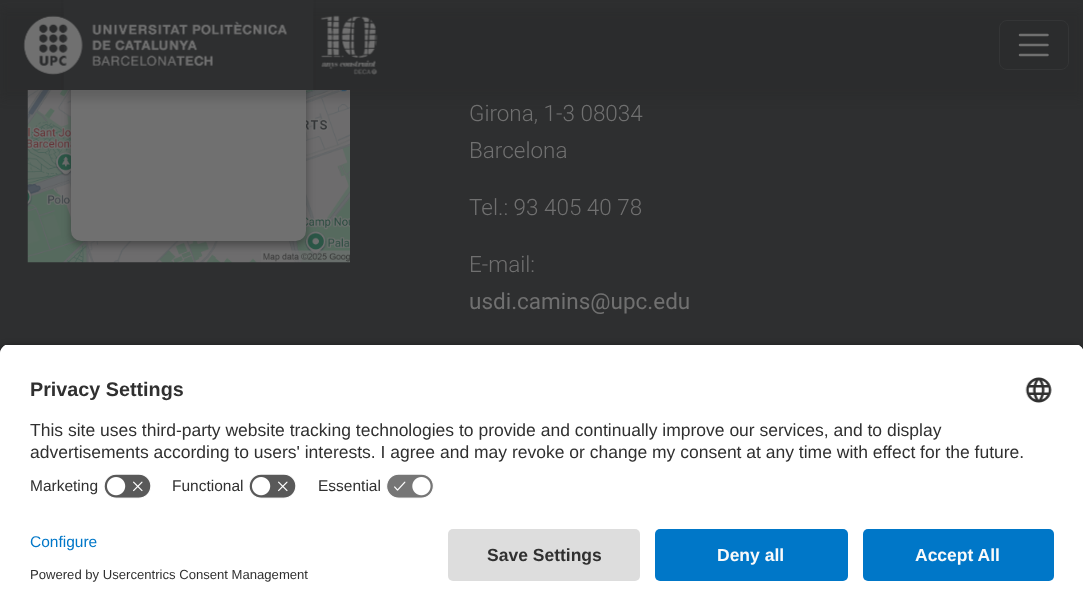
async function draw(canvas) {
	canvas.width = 1083;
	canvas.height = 611;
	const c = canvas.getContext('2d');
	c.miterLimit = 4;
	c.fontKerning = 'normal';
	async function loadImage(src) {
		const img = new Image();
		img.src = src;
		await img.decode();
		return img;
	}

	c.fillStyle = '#2e2f30';
	c.fillRect(0, 0, 1083, 611);
	c.drawImage(await loadImage('img3.png'), 27, 90, 323, 173);
	c.fillStyle = '#24242480';
	c.filter = 'blur(4px)';
	c.beginPath();
	c.roundRect(71, -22, 235, 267, 10);
	c.fill();
	c.filter = 'none';
	c.fillStyle = '#707070';
	c.beginPath();
	c.roundRect(71, -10, 235, 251, 10);
	c.fill();
	c.fillStyle = '#24242433';
	c.filter = 'blur(5px)';
	c.beginPath();
	c.rect(0, 9, 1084, 90);
	c.fill();
	c.filter = 'none';
	c.fillStyle = '#2e2f30';
	c.fillRect(64, 0, 249, 90);
	c.drawImage(await loadImage('img1.png'), 23, 15, 265, 60);
	c.drawImage(await loadImage('img2.png'), 320, 15, 58, 60);
	c.beginPath();
	c.roundRect(999.5, 20.5, 69, 49, 7.5);
	c.strokeStyle = '#343536';
	c.stroke();
	c.beginPath();
	c.moveTo(1020, 35);
	c.lineTo(1047.5, 35);
	c.moveTo(1020, 45);
	c.lineTo(1047.5, 45);
	c.moveTo(1020, 55);
	c.lineTo(1047.5, 55);
	c.strokeStyle = '#707070';
	c.lineWidth = 2.5;
	c.lineCap = 'round';
	c.stroke();
	c.font = '300 22.5px Roboto';
	c.fillStyle = '#707070';
	for (const [text, x, y] of [
		['Girona, 1-3 08034', 469, 121],
		['Barcelona', 469, 158],
		['Tel.: 93 405 40 78', 469, 215],
		['E-mail:', 469, 272],
	]) {
		c.fillText(text, x, y);
	}
	c.font = '22.5px Roboto';
	c.fillText('usdi.camins@upc.edu', 469, 309);
	c.fillStyle = '#000000cc';
	c.filter = 'blur(4.5px)';
	c.beginPath();
	c.roundRect(0, 348, 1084, 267, 10);
	c.fill();
	c.filter = 'none';
	c.save();
	c.beginPath();
	c.moveTo(10, 344);
	c.lineTo(1074, 344);
	c.bezierCurveTo(1079.5, 344, 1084, 348.5, 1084, 354);
	c.lineTo(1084, 519);
	c.lineTo(0, 519);
	c.lineTo(0, 354);
	c.bezierCurveTo(0, 348.5, 4.5, 344, 10, 344);
	c.closePath();
	c.clip();
	c.fillStyle = '#fff';
	c.fillRect(0, 345, 1083, 174);
	c.fillRect(0, 345, 1083, 124);
	c.restore();
	c.font = 'bold 19.75px Liberation Sans';
	c.fillStyle = '#303030';
	c.fillText('Privacy Settings', 30, 396);
	c.drawImage(await loadImage('img4.png'), 1025, 377, 27, 26);
	c.font = '17.5px Liberation Sans';
	c.fillText('This site uses third-party website tracking technologies to provide and continually improve our services, and to display', 30, 436);
	c.fillText('advertisements according to users\' interests. I agree and may revoke or change my consent at any time with effect for the future.', 30, 458);
	c.font = '15.5px Liberation Sans';
	c.fillText('Marketing', 30, 491);
	c.drawImage(await loadImage('img5.png'), 104, 474, 47, 25);
	c.fillText('Functional', 172, 491);
	c.drawImage(await loadImage('img5.png'), 249, 474, 47, 25);
	c.fillText('Essential', 318, 491);
	c.drawImage(await loadImage('img6.png'), 386, 474, 48, 25);
	c.fillStyle = '#fff';
	c.fillRect(0, 519, 1083, 92);
	c.fillStyle = '#0077c8';
	c.fillText('Configure', 30, 547);
	c.font = '13.1px Liberation Sans';
	c.fillStyle = '#303030';
	c.fillText('Powered by Usercentrics Consent Management', 30, 579);
	c.fillStyle = '#ddd';
	c.beginPath();
	c.roundRect(448, 529, 192, 52, 5);
	c.fill();
	c.font = 'bold 17.5px Liberation Sans';
	c.fillStyle = '#303030';
	c.fillText('Save Settings', 487, 561);
	c.fillStyle = '#0077c8';
	c.beginPath();
	c.roundRect(655, 529, 193, 52, 5);
	c.fill();
	c.fillStyle = '#fafafa';
	c.fillText('Deny all', 717, 561);
	c.fillStyle = '#0077c8';
	c.beginPath();
	c.roundRect(863, 529, 191, 52, 5);
	c.fill();
	c.fillStyle = '#fafafa';
	c.fillText('Accept All', 915, 561);
}

draw(document.querySelector('canvas'));
